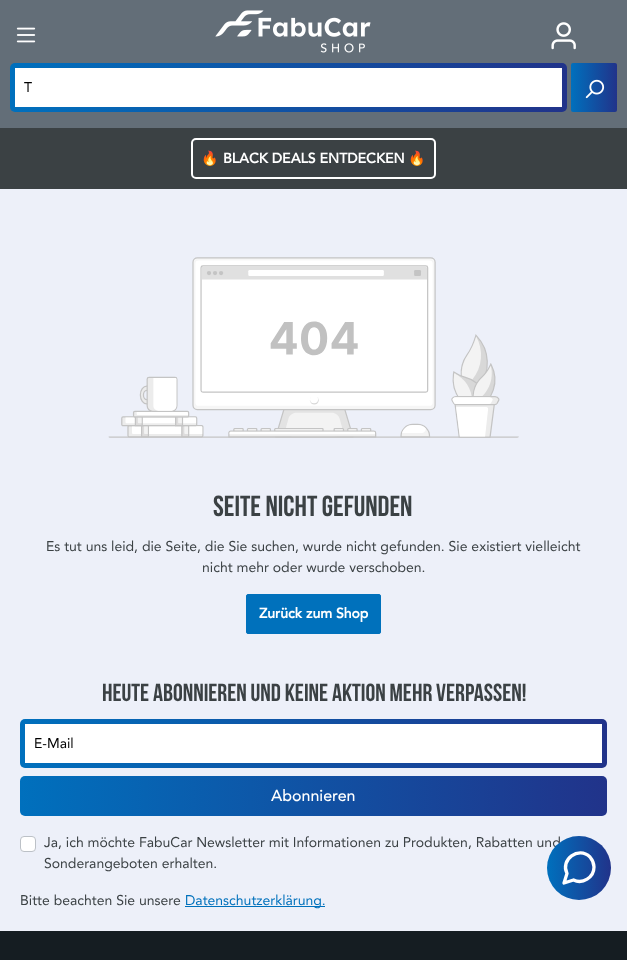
async function draw(canvas) {
	canvas.width = 627;
	canvas.height = 960;
	const c = canvas.getContext('2d');
	c.miterLimit = 4;
	c.fontKerning = 'normal';
	async function loadImage(src) {
		const img = new Image();
		img.src = src;
		await img.decode();
		return img;
	}
	let gradient;

	c.fillStyle = '#edf0f9';
	c.fillRect(0, 0, 627, 960);
	c.fillStyle = '#636e78';
	c.fillRect(0, 0, 627, 128);
	c.drawImage(await loadImage('img1.png'), 16, 27, 20, 16);
	c.drawImage(await loadImage('img2.png'), 215, 10, 156, 43);
	c.drawImage(await loadImage('img3.png'), 551, 22, 25, 28);
	gradient = c.createLinearGradient(10, 88, 567, 87);
	gradient.addColorStop(0, '#0070bd');
	gradient.addColorStop(1, '#21338a');
	c.fillStyle = gradient;
	c.beginPath();
	c.roundRect(10, 63, 557, 49, 5);
	c.fill();
	c.fillStyle = '#fff';
	c.fillRect(15, 68, 547, 39);
	c.font = '14px Avenir';
	c.fillStyle = '#000';
	c.fillText('T', 24, 92);
	gradient = c.createLinearGradient(571, 88, 617, 88);
	gradient.addColorStop(0, '#0070bd');
	gradient.addColorStop(1, '#21338a');
	c.fillStyle = gradient;
	c.beginPath();
	c.roundRect(571, 63, 46, 49, 2);
	c.fill();
	c.drawImage(await loadImage('img4.png'), 585, 79, 20, 20);
	c.fillStyle = '#3b4144';
	c.fillRect(0, 128, 627, 61);
	c.beginPath();
	c.roundRect(192, 139, 243, 39, 4);
	c.strokeStyle = '#fff';
	c.lineWidth = 2;
	c.stroke();
	c.font = 'bold 14px Noto Color Emoji';
	c.fillStyle = '#fff';
	c.fillText('🔥', 201, 163);
	c.font = 'bold 14px Avenir';
	c.fillText('BLACK DEALS ENTDECKEN', 223, 163);
	c.font = 'bold 14px Noto Color Emoji';
	c.fillText('🔥', 408, 163);
	c.drawImage(await loadImage('img5.png'), 108, 257, 411, 181);
	c.font = 'bold 29px Bebas Neue';
	c.fillStyle = '#3b4144';
	c.fillText('Seite nicht gefunden', 213, 516);
	c.font = '14px Avenir';
	c.fillText('Es tut uns leid, die Seite, die Sie suchen, wurde nicht gefunden. Sie existiert vielleicht', 46, 551);
	c.fillText('nicht mehr oder wurde verschoben.', 202, 572);
	c.fillStyle = '#0071bc';
	c.beginPath();
	c.roundRect(246.5, 594.5, 134, 39, 1.5);
	c.fill();
	c.strokeStyle = '#0071bc';
	c.lineWidth = 1;
	c.stroke();
	c.font = 'bold 14px Avenir';
	c.fillStyle = '#fff';
	c.fillText('Zurück zum Shop', 259, 618);
	c.font = '24.6px Bebas Neue';
	c.fillStyle = '#3b4144';
	c.fillText('Heute abonnieren und keine aktion mehr verpassen!', 102, 701);
	gradient = c.createLinearGradient(20, 744, 607, 744);
	gradient.addColorStop(0, '#0070bd');
	gradient.addColorStop(1, '#21338a');
	c.fillStyle = gradient;
	c.beginPath();
	c.roundRect(20, 719, 587, 49, 5);
	c.fill();
	c.fillStyle = '#fff';
	c.fillRect(25, 724, 577, 39);
	c.font = '14px Avenir';
	c.fillStyle = '#000';
	c.fillText('E-Mail', 34, 748);
	gradient = c.createLinearGradient(20, 796, 607, 796);
	gradient.addColorStop(0, '#0070bd');
	gradient.addColorStop(1, '#21338a');
	c.fillStyle = gradient;
	c.beginPath();
	c.roundRect(20, 776, 587, 40, 5);
	c.fill();
	c.font = '500 16px Avenir';
	c.fillStyle = '#fff';
	c.fillText('Abonnieren', 271, 801);
	c.beginPath();
	c.roundRect(20.5, 836.5, 15, 15, 3.5);
	c.fill();
	c.strokeStyle = '#bcc1c7';
	c.stroke();
	c.font = '14px Avenir';
	c.fillStyle = '#3b4144';
	for (const [text, x, y] of [
		['Ja, ich möchte FabuCar Newsletter mit Informationen zu Produkten, Rabatten und', 44, 847],
		['Sonderangeboten erhalten.', 44, 868],
		['Bitte beachten Sie unsere', 20, 905],
	]) {
		c.fillText(text, x, y);
	}
	c.fillStyle = '#0071bc';
	c.fillRect(185, 906, 140, 1);
	c.fillText('Datenschutzerklärung.', 185, 905);
	gradient = c.createLinearGradient(547, 868, 611, 868);
	gradient.addColorStop(0, '#0070bd');
	gradient.addColorStop(1, '#21338a');
	c.fillStyle = gradient;
	c.beginPath();
	c.arc(579, 868, 32, 0, 2 * Math.PI);
	c.fill();
	c.beginPath();
	c.moveTo(594, 867);
	c.bezierCurveTo(594, 877.5, 582.5, 884.5, 573.5, 880);
	c.lineTo(564, 883);
	c.lineTo(567, 873.5);
	c.bezierCurveTo(560, 859.5, 578.5, 846, 590, 857);
	c.bezierCurveTo(592.5, 860, 594, 863.5, 594, 867);
	c.closePath();
	c.strokeStyle = '#fff';
	c.lineWidth = 3.3;
	c.lineCap = 'round';
	c.lineJoin = 'round';
	c.stroke();
	c.fillStyle = '#151d22';
	c.fillRect(0, 931, 627, 29);
}

draw(document.querySelector('canvas'));
